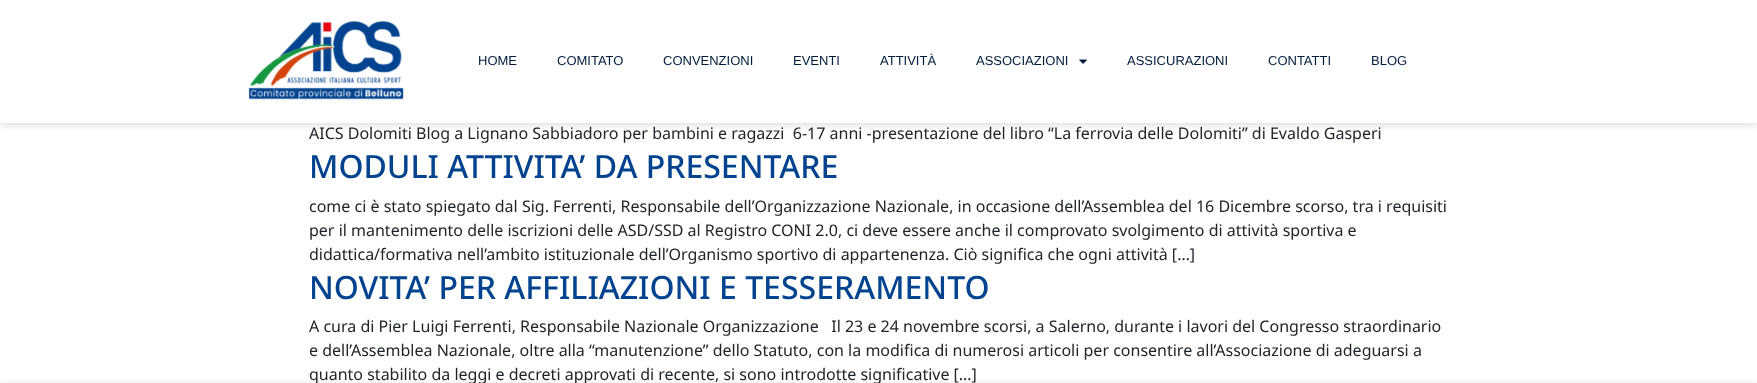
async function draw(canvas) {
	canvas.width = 1757;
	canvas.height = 383;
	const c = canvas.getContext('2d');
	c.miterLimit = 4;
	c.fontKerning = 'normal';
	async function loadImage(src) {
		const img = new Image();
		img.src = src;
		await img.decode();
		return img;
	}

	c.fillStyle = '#fff';
	c.fillRect(0, 0, 1757, 383);
	c.fillStyle = '#00000033';
	c.filter = 'blur(5px)';
	c.beginPath();
	c.rect(0, 0, 1757, 123);
	c.fill();
	c.filter = 'none';
	c.fillStyle = '#fff';
	c.fillRect(0, 0, 1757, 123);
	c.drawImage(await loadImage('img1.png'), 248, 21, 156, 79);
	c.font = '13px Liberation Sans';
	c.fillStyle = '#001c3c';
	for (const [text, x, y] of [
		['HOME', 478, 65],
		['COMITATO', 557, 65],
		['CONVENZIONI', 663, 65],
		['EVENTI', 793, 65],
		['ATTIVITÀ', 880, 65],
		['ASSOCIAZIONI', 976, 65],
	]) {
		c.fillText(text, x, y);
	}
	c.drawImage(await loadImage('img2.png'), 1079, 59, 8, 5);
	for (const [text, x, y] of [
		['ASSICURAZIONI', 1127, 65],
		['CONTATTI', 1268, 65],
		['BLOG', 1371, 65],
	]) {
		c.fillText(text, x, y);
	}
	c.font = '16px Noto Sans';
	c.fillStyle = '#212529';
	c.fillText('AICS Dolomiti Blog a Lignano Sabbiadoro per bambini e ragazzi  6-17 anni -presentazione del libro “La ferrovia delle Dolomiti” di Evaldo Gasperi', 309, 139);
	c.font = '500 32px Noto Sans';
	c.fillStyle = '#01438e';
	c.fillText('MODULI ATTIVITA’ DA PRESENTARE', 309, 178);
	c.font = '16px Noto Sans';
	c.fillStyle = '#212529';
	for (const [text, x, y] of [
		['come ci è stato spiegato dal Sig. Ferrenti, Responsabile dell’Organizzazione Nazionale, in occasione dell’Assemblea del 16 Dicembre scorso, tra i requisiti', 309, 212],
		['per il mantenimento delle iscrizioni delle ASD/SSD al Registro CONI 2.0, ci deve essere anche il comprovato svolgimento di attività sportiva e', 309, 236],
		['didattica/formativa nell’ambito istituzionale dell’Organismo sportivo di appartenenza. Ciò significa che ogni attività […]', 309, 260],
	]) {
		c.fillText(text, x, y);
	}
	c.font = '500 32px Noto Sans';
	c.fillStyle = '#01438e';
	c.fillText('NOVITA’ PER AFFILIAZIONI E TESSERAMENTO', 309, 299);
	c.font = '16px Noto Sans';
	c.fillStyle = '#212529';
	for (const [text, x, y] of [
		['A cura di Pier Luigi Ferrenti, Responsabile Nazionale Organizzazione   Il 23 e 24 novembre scorsi, a Salerno, durante i lavori del Congresso straordinario', 309, 332],
		['e dell’Assemblea Nazionale, oltre alla “manutenzione” dello Statuto, con la modifica di numerosi articoli per consentire all’Associazione di adeguarsi a', 309, 356],
		['quanto stabilito da leggi e decreti approvati di recente, si sono introdotte significative […]', 309, 380],
	]) {
		c.fillText(text, x, y);
	}
	c.fillStyle = '#00000066';
	c.filter = 'blur(5px)';
	c.beginPath();
	c.rect(0, 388, 1757, 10);
	c.fill();
	c.filter = 'none';
}

draw(document.querySelector('canvas'));
